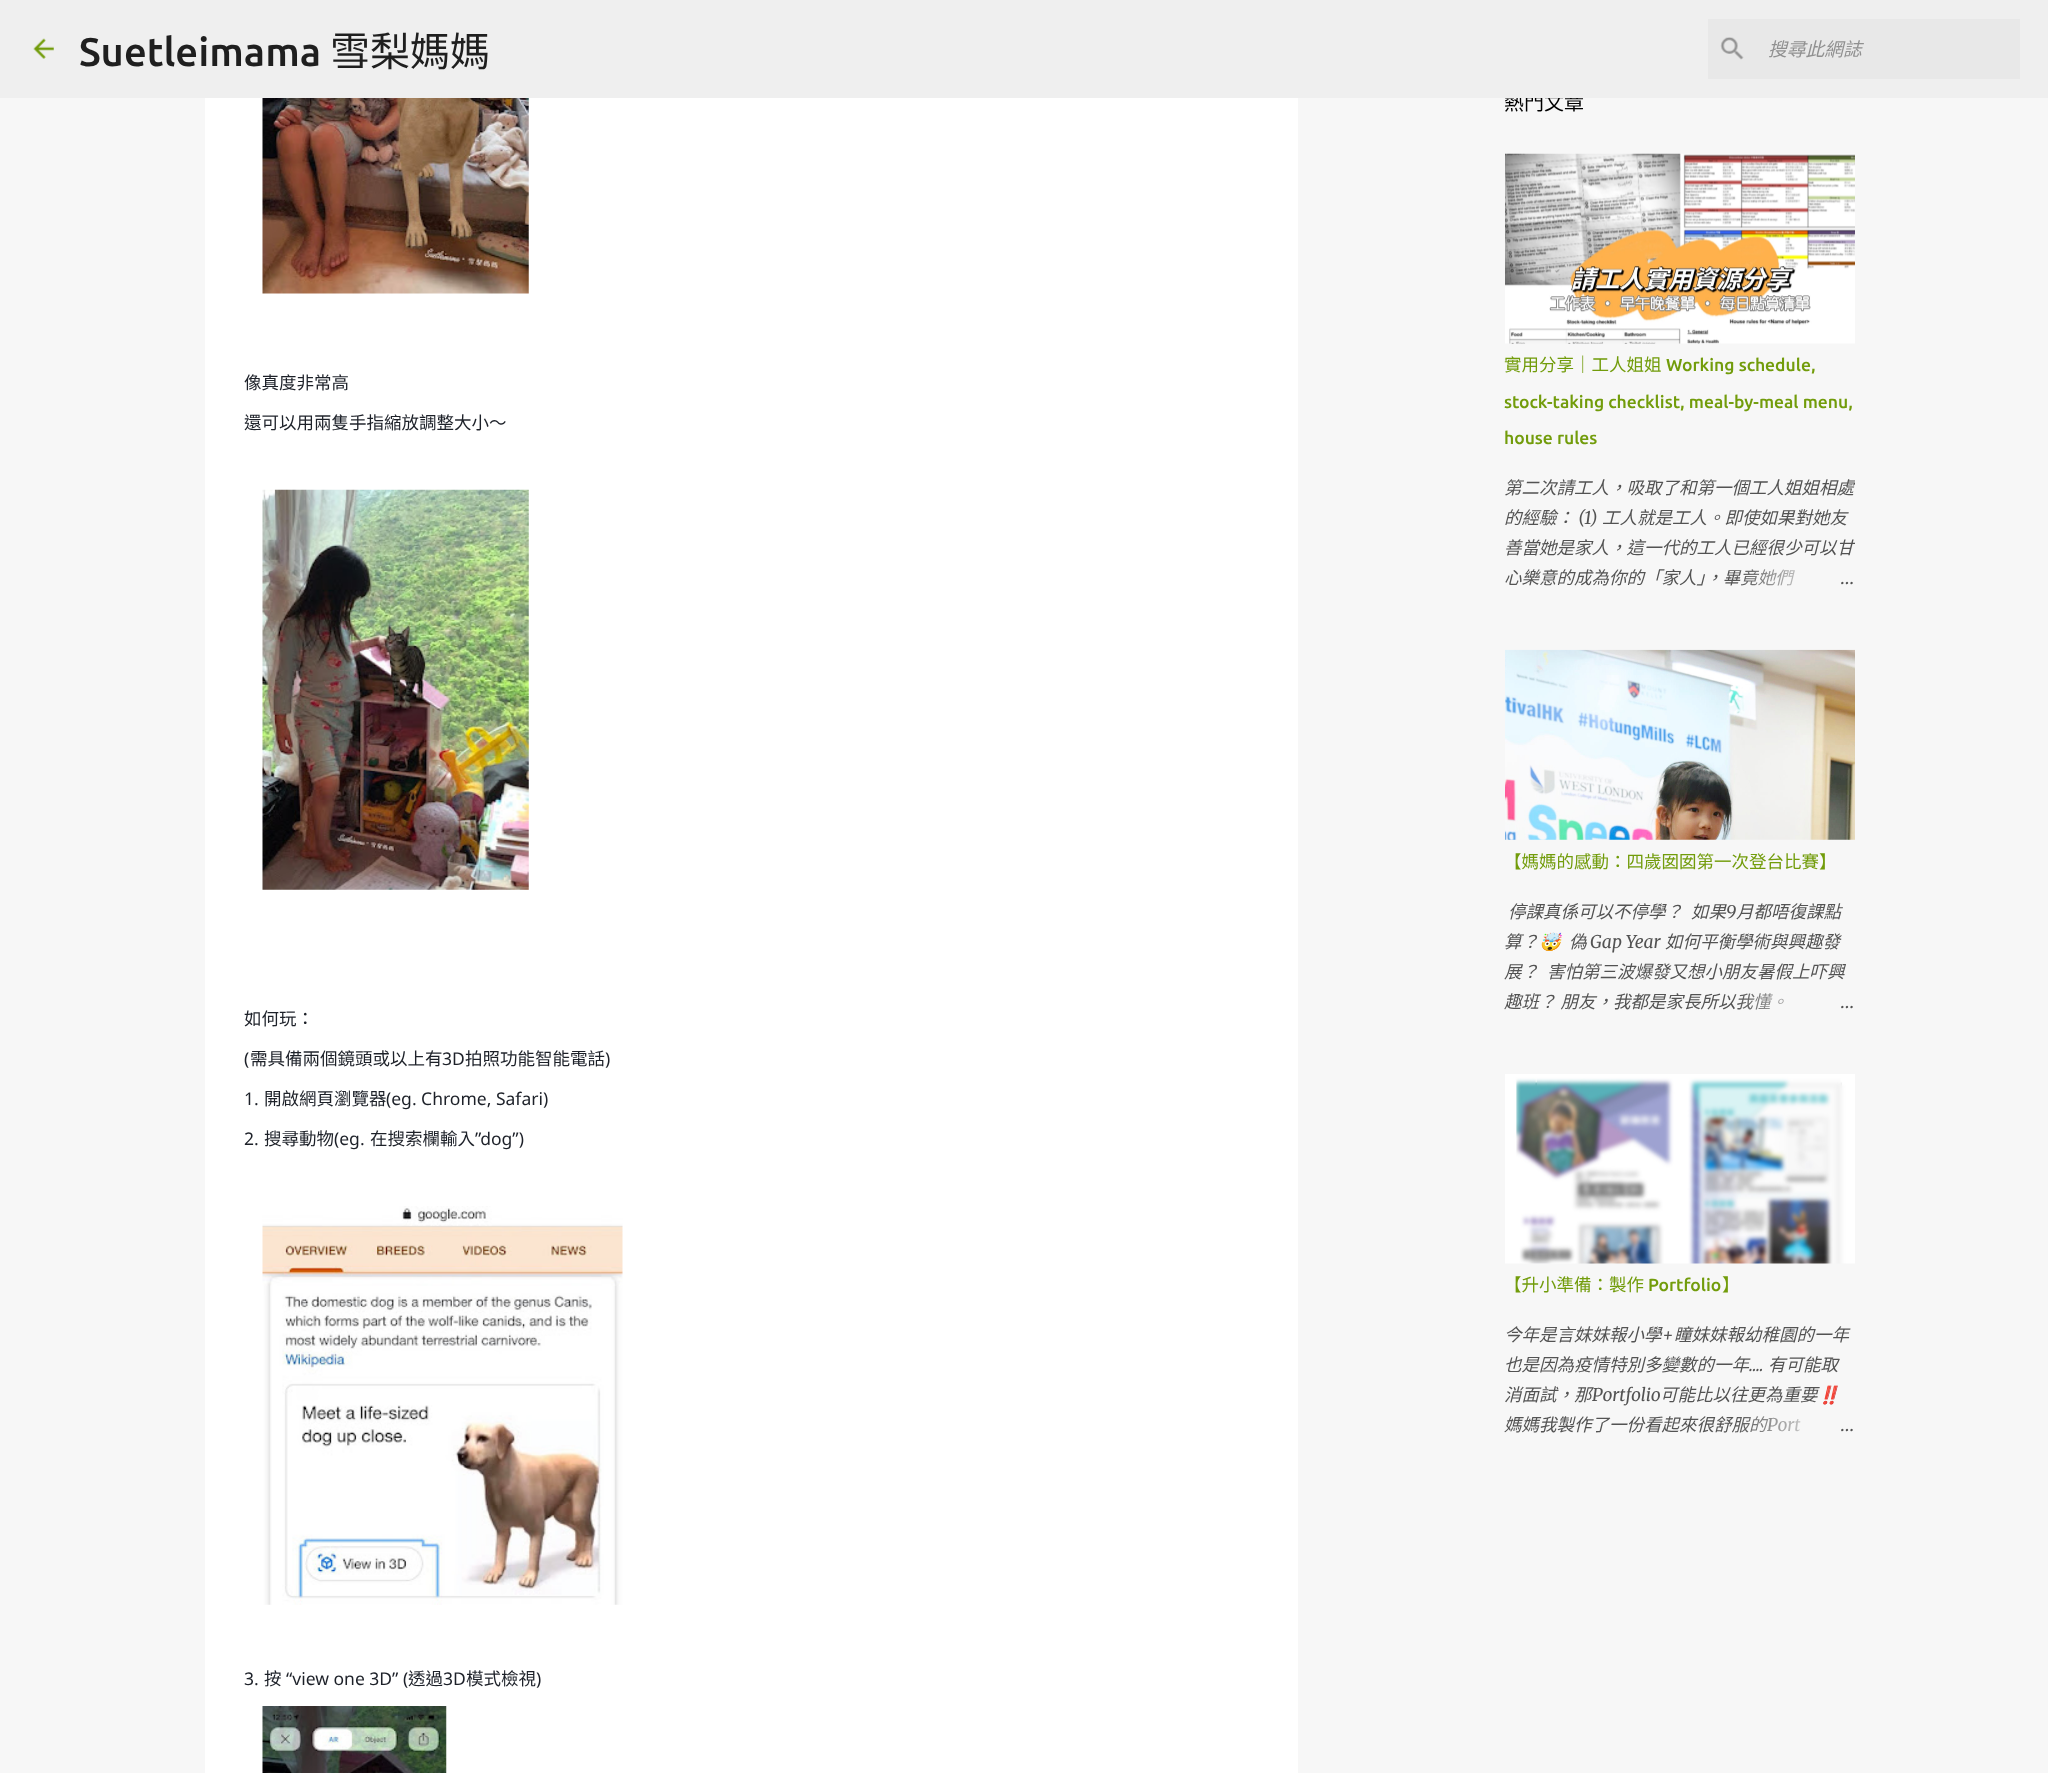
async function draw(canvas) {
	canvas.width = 2048;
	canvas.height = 1773;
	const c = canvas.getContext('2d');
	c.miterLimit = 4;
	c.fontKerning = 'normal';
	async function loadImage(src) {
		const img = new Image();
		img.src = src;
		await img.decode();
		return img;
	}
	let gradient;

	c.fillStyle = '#f7f7f7';
	c.fillRect(0, 0, 2048, 1773);
	c.font = '20px Noto Sans CJK HK';
	c.fillStyle = '#000';
	c.fillText('熱門文章', 1504, 110);
	c.fillStyle = '#efefef';
	c.fillRect(0, 0, 2048, 98);
	c.drawImage(await loadImage('img1.png'), 33, 38, 21, 21);
	c.font = '500 40px Ubuntu';
	c.fillStyle = '#1f1f1f';
	c.fillText('Suetleimama', 79, 66);
	c.font = '40px Noto Sans CJK HK';
	c.fillText('雪梨媽媽', 330, 66);
	c.fillStyle = '#e8e8e8';
	c.fillRect(1708, 19, 312, 60);
	c.drawImage(await loadImage('img2.png'), 1720, 37, 24, 23);
	c.font = 'italic 18.75px Noto Sans CJK HK';
	c.fillStyle = '#909090';
	c.fillText('搜尋此網誌', 1768, 56);
	c.fillStyle = '#fff';
	c.fillRect(205, 98, 1093, 1675);
	c.drawImage(await loadImage('img3.png'), 262, 98, 267, 196);
	c.font = '17.5px Noto Sans CJK HK';
	c.fillStyle = '#1d2129';
	c.fillText('像真度非常高', 244, 389);
	c.fillText('還可以用兩隻手指縮放調整大小～', 244, 429);
	c.drawImage(await loadImage('img4.png'), 262, 489, 267, 401);
	c.fillText('如何玩：', 244, 1025);
	c.font = '17.5px Noto Sans';
	c.fillText('(', 244, 1065);
	c.font = '17.5px Noto Sans CJK HK';
	c.fillText('需具備兩個鏡頭或以上有', 250, 1065);
	c.font = '17.5px Noto Sans';
	c.fillText('3D', 442, 1065);
	c.font = '17.5px Noto Sans CJK HK';
	c.fillText('拍照功能智能電話', 465, 1065);
	c.font = '17.5px Noto Sans';
	c.fillText(')', 605, 1065);
	c.fillText('1.', 244, 1105);
	c.font = '17.5px Noto Sans CJK HK';
	c.fillText('開啟網頁瀏覽器', 264, 1105);
	c.font = '17.5px Noto Sans';
	c.fillText('(eg. Chrome, Safari)', 386, 1105);
	c.fillText('2.', 244, 1145);
	c.font = '17.5px Noto Sans CJK HK';
	c.fillText('搜尋動物', 264, 1145);
	c.font = '17.5px Noto Sans';
	c.fillText('(eg.', 334, 1145);
	c.font = '17.5px Noto Sans CJK HK';
	c.fillText('在搜索欄輸入', 370, 1145);
	c.font = '17.5px Noto Sans';
	c.fillText('”dog”)', 475, 1145);
	c.drawImage(await loadImage('img5.png'), 262, 1206, 361, 399);
	c.fillText('3.', 244, 1685);
	c.font = '17.5px Noto Sans CJK HK';
	c.fillText('按', 264, 1685);
	c.font = '17.5px Noto Sans';
	c.fillText('“view one 3D” (', 286, 1685);
	c.font = '17.5px Noto Sans CJK HK';
	c.fillText('透過', 408, 1685);
	c.font = '17.5px Noto Sans';
	c.fillText('3D', 443, 1685);
	c.font = '17.5px Noto Sans CJK HK';
	c.fillText('模式檢視', 466, 1685);
	c.font = '17.5px Noto Sans';
	c.fillText(')', 536, 1685);
	c.drawImage(await loadImage('img6.png'), 262, 1706, 185, 67);
	c.drawImage(await loadImage('img7.png'), 1505, 153, 350, 191);
	c.font = '17.5px Noto Sans CJK HK';
	c.fillStyle = '#729c0b';
	c.fillText('實用分享｜工人姐姐', 1504, 371);
	c.font = '500 17.5px Ubuntu';
	for (const [text, x, y] of [
		['Working schedule,', 1666, 371],
		['stock-taking checklist, meal-by-meal menu,', 1504, 408],
		['house rules', 1504, 444],
	]) {
		c.fillText(text, x, y);
	}
	c.save();
	c.beginPath();
	c.rect(1505, 473, 350, 120);
	c.clip();
	c.font = 'italic 17.5px Noto Sans CJK HK';
	c.fillStyle = '#535353';
	c.fillText('第二次請工人，吸取了和第一個工人姐姐相處', 1504, 494);
	c.restore();
	c.font = 'italic 17.5px Noto Sans CJK HK';
	c.fillStyle = '#535353';
	c.fillText('的經驗：', 1504, 524);
	c.font = 'italic 17.5px Merriweather';
	c.fillText('(1)', 1578, 524);
	c.font = 'italic 17.5px Noto Sans CJK HK';
	c.fillText('工人就是工人。即使如果對她友', 1602, 524);
	c.save();
	c.beginPath();
	c.rect(1505, 473, 350, 120);
	c.clip();
	c.fillText('善當她是家人，這一代的工人已經很少可以甘', 1504, 554);
	c.restore();
	c.fillText('心樂意的成為你的「家人」，畢竟她們', 1504, 584);
	gradient = c.createLinearGradient(1855, 578, 1735, 578);
	gradient.addColorStop(0, '#f7f7f7');
	gradient.addColorStop(0.2, '#f7f7f7');
	gradient.addColorStop(1, '#f7f7f700');
	c.fillStyle = gradient;
	c.fillRect(1737, 569, 59, 17);
	c.font = '300 17.5px Merriweather';
	c.fillStyle = '#535353';
	c.fillText('…', 1840, 584);
	c.drawImage(await loadImage('img8.png'), 1505, 649, 350, 191);
	c.font = '17.5px Noto Sans CJK HK';
	c.fillStyle = '#729c0b';
	c.fillText('【媽媽的感動：四歲囡囡第一次登台比賽】', 1504, 868);
	c.font = 'italic 17.5px Noto Sans CJK HK';
	c.fillStyle = '#535353';
	c.fillText('停課真係可以不停學？', 1508, 918);
	c.fillText('如果', 1691, 918);
	c.font = 'italic 17.5px Merriweather';
	c.fillText('9', 1726, 918);
	c.font = 'italic 17.5px Noto Sans CJK HK';
	c.fillText('月都唔復課點', 1736, 918);
	c.fillText('算？', 1504, 948);
	c.font = 'italic 17.5px Noto Color Emoji';
	c.fillText('🤯', 1539, 948);
	c.font = 'italic 17.5px Noto Sans CJK HK';
	c.fillText('偽', 1569, 948);
	c.font = 'italic 17.5px Merriweather';
	c.fillText('Gap Year', 1590, 948);
	c.font = 'italic 17.5px Noto Sans CJK HK';
	for (const [text, x, y] of [
		['如何平衡學術與興趣發', 1665, 948],
		['展？', 1504, 978],
		['害怕第三波爆發又想小朋友暑假上吓興', 1547, 978],
		['趣班？ 朋友，我都是家長所以我懂。', 1504, 1008],
	]) {
		c.fillText(text, x, y);
	}
	gradient = c.createLinearGradient(1855, 1001, 1735, 1001);
	gradient.addColorStop(0, '#f7f7f7');
	gradient.addColorStop(0.2, '#f7f7f7');
	gradient.addColorStop(1, '#f7f7f700');
	c.fillStyle = gradient;
	c.fillRect(1738, 993, 46, 17);
	c.font = '300 17.5px Merriweather';
	c.fillStyle = '#535353';
	c.fillText('…', 1840, 1008);
	c.drawImage(await loadImage('img9.png'), 1505, 1074, 350, 190);
	c.font = '17.5px Noto Sans CJK HK';
	c.fillStyle = '#729c0b';
	c.fillText('【升小準備：製作', 1504, 1291);
	c.font = '500 17.5px Ubuntu';
	c.fillText('Portfolio', 1648, 1291);
	c.font = '17.5px Noto Sans CJK HK';
	c.fillText('】', 1722, 1291);
	c.font = 'italic 17.5px Noto Sans CJK HK';
	c.fillStyle = '#535353';
	c.fillText('今年是言妹妹報小學', 1504, 1341);
	c.font = 'italic 17.5px Merriweather';
	c.fillText('+', 1662, 1341);
	c.font = 'italic 17.5px Noto Sans CJK HK';
	c.fillText('瞳妹妹報幼稚園的一年', 1674, 1341);
	c.fillText('也是因為疫情特別多變數的一年', 1504, 1371);
	c.font = 'italic 17.5px Merriweather';
	c.fillText('....', 1749, 1371);
	c.font = 'italic 17.5px Noto Sans CJK HK';
	c.fillText('有可能取', 1768, 1371);
	c.fillText('消面試，那', 1504, 1401);
	c.font = 'italic 17.5px Merriweather';
	c.fillText('Portfolio', 1592, 1401);
	c.font = 'italic 17.5px Noto Sans CJK HK';
	c.fillText('可能比以往更為重要', 1660, 1401);
	c.font = 'italic 17.5px Noto Color Emoji';
	c.fillText('‼️', 1818, 1401);
	c.font = 'italic 17.5px Noto Sans CJK HK';
	c.fillText('媽媽我製作了一份看起來很舒服的', 1504, 1431);
	c.font = 'italic 17.5px Merriweather';
	c.fillText('Port', 1767, 1431);
	gradient = c.createLinearGradient(1855, 1425, 1735, 1425);
	gradient.addColorStop(0, '#f7f7f7');
	gradient.addColorStop(0.2, '#f7f7f7');
	gradient.addColorStop(1, '#f7f7f700');
	c.fillStyle = gradient;
	c.fillRect(1737, 1416, 64, 17);
	c.font = '300 17.5px Merriweather';
	c.fillStyle = '#535353';
	c.fillText('…', 1840, 1431);
}

draw(document.querySelector('canvas'));
